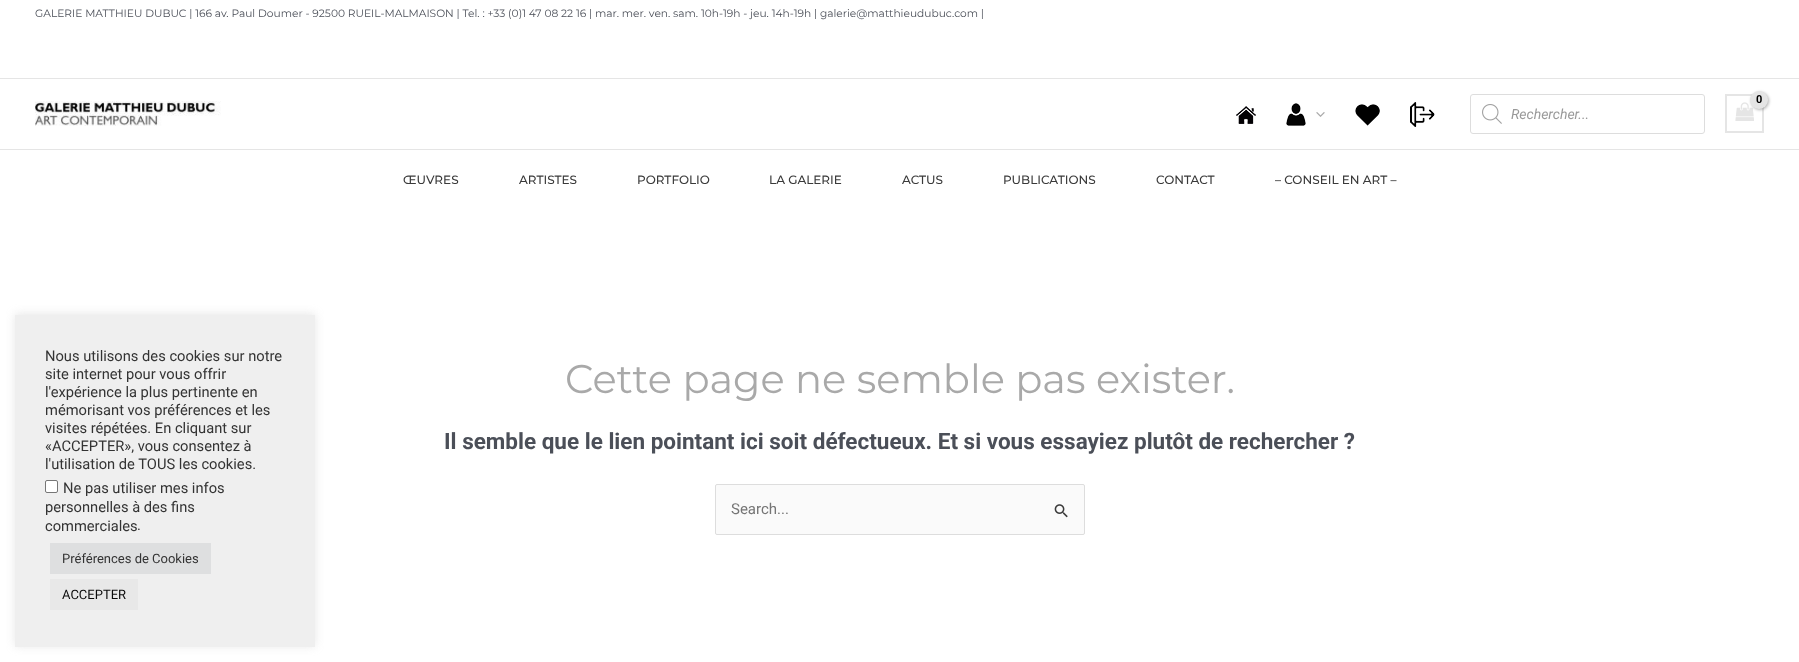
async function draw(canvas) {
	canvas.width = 1799;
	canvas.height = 662;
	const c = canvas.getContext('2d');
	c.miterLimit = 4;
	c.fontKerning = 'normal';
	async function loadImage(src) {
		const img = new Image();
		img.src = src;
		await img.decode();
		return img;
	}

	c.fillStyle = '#fff';
	c.fillRect(0, 0, 1799, 662);
	c.fillStyle = '#e5e5e5';
	c.fillRect(0, 78, 1799, 1);
	c.font = '10.67px Montserrat';
	c.fillStyle = '#4b4f58';
	c.fillText('GALERIE MATTHIEU DUBUC | 166 av. Paul Doumer - 92500 RUEIL-MALMAISON | Tel. : +33 (0)1 47 08 22 16 | mar. mer. ven. sam. 10h-19h - jeu. 14h-19h | galerie@matthieudubuc.com |', 35, 17);
	c.fillStyle = '#e5e5e5';
	c.fillRect(0, 149, 1799, 1);
	c.drawImage(await loadImage('img1.png'), 35, 101, 186, 25);
	c.strokeStyle = '#e5e5e5';
	c.lineWidth = 2;
	c.strokeRect(1726, 95, 37, 37);
	c.drawImage(await loadImage('img2.png'), 1735, 102, 19, 19);
	c.fillStyle = '#0000004d';
	c.filter = 'blur(1.5px)';
	c.beginPath();
	c.roundRect(1751, 92, 18, 18, 9);
	c.fill();
	c.filter = 'none';
	c.fillStyle = '#e5e5e5';
	c.beginPath();
	c.arc(1759, 100, 9, 0, 2 * Math.PI);
	c.fill();
	c.font = 'bold 11px Roboto';
	c.fillStyle = '#000';
	c.fillText('0', 1756, 103);
	c.drawImage(await loadImage('img3.png'), 1236, 106, 20, 18);
	c.drawImage(await loadImage('img4.png'), 1286, 103, 20, 23);
	c.drawImage(await loadImage('img5.png'), 1316, 112, 9, 5);
	c.drawImage(await loadImage('img6.png'), 1355, 104, 25, 22);
	c.drawImage(await loadImage('img7.png'), 1410, 102, 25, 25);
	c.beginPath();
	c.roundRect(1470.5, 94.5, 234, 39, 2.5);
	c.strokeStyle = '#ddd';
	c.lineWidth = 1;
	c.stroke();
	c.drawImage(await loadImage('img8.png'), 1482, 104, 20, 20);
	c.font = 'italic 14px Roboto';
	c.fillStyle = '#999';
	c.fillText('Rechercher...', 1511, 119);
	c.font = '500 12px Montserrat';
	c.fillStyle = '#3a3a3a';
	for (const [text, x, y] of [
		['ŒUVRES', 403, 184],
		['ARTISTES', 519, 184],
		['PORTFOLIO', 637, 184],
		['LA GALERIE', 769, 184],
		['ACTUS', 902, 184],
		['PUBLICATIONS', 1003, 184],
		['CONTACT', 1156, 184],
		['– CONSEIL EN ART –', 1275, 184],
	]) {
		c.fillText(text, x, y);
	}
	c.font = '40px Montserrat';
	c.fillStyle = '#a9a9a9';
	c.fillText('Cette page ne semble pas exister.', 565, 393);
	c.font = 'bold 22.5px Roboto';
	c.fillStyle = '#4b4f58';
	c.fillText('Il semble que le lien pointant ici soit défectueux. Et si vous essayiez plutôt de rechercher ?', 444, 449);
	c.fillStyle = '#fafafa';
	c.beginPath();
	c.roundRect(715.5, 484.5, 369, 50, 1.5);
	c.fill();
	c.stroke();
	c.font = '15px Roboto';
	c.fillStyle = '#757575';
	c.fillText('Search...', 731, 514);
	c.drawImage(await loadImage('img9.png'), 1054, 504, 14, 14);
	c.fillStyle = '#acabab4d';
	c.filter = 'blur(5px)';
	c.beginPath();
	c.rect(15, 314, 300, 332);
	c.fill();
	c.filter = 'none';
	c.fillStyle = '#efefef';
	c.fillRect(15, 315, 300, 332);
	c.font = '14.7px Roboto';
	c.fillStyle = '#333';
	for (const [text, x, y] of [
		['Nous utilisons des cookies sur notre', 45, 361],
		['site internet pour vous offrir', 45, 379],
		['l\'expérience la plus pertinente en', 45, 397],
		['mémorisant vos préférences et les', 45, 415],
		['visites répétées. En cliquant sur', 45, 433],
		['«ACCEPTER», vous consentez à', 45, 451],
		['l\'utilisation de TOUS les cookies.', 45, 469],
	]) {
		c.fillText(text, x, y);
	}
	c.fillStyle = '#fff';
	c.beginPath();
	c.roundRect(45.5, 480.5, 12, 12, 1.5);
	c.fill();
	c.strokeStyle = '#767676';
	c.stroke();
	c.fillStyle = '#333';
	for (const [text, x, y] of [
		['Ne pas utiliser mes infos', 63, 493],
		['personnelles à des fins', 45, 512],
		['commerciales', 45, 531],
		['.', 137, 530],
	]) {
		c.fillText(text, x, y);
	}
	c.fillStyle = '#dedfe0';
	c.fillRect(50, 543, 161, 31);
	c.font = '13px Roboto';
	c.fillStyle = '#333';
	c.fillText('Préférences de Cookies', 62, 563);
	c.fillStyle = '#e8e8e8';
	c.fillRect(50, 579, 88, 31);
	c.fillStyle = '#0a0a0a';
	c.fillText('ACCEPTER', 62, 599);
}

draw(document.querySelector('canvas'));
